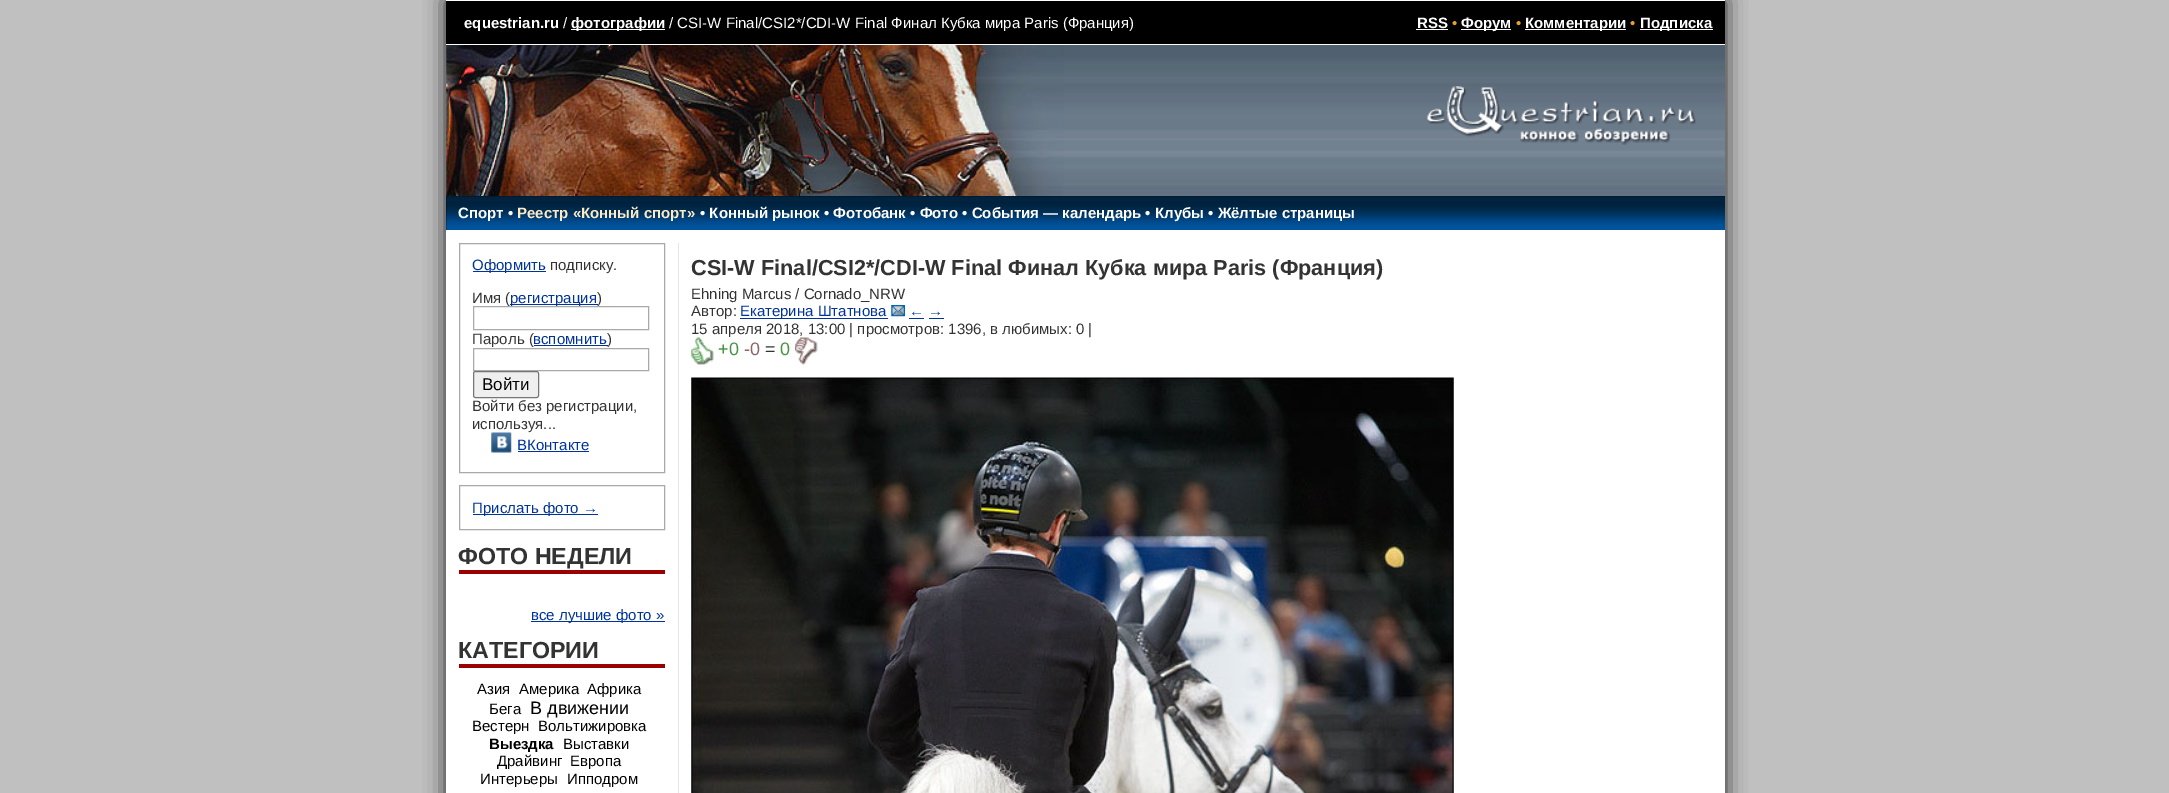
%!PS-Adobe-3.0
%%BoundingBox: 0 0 2169 793
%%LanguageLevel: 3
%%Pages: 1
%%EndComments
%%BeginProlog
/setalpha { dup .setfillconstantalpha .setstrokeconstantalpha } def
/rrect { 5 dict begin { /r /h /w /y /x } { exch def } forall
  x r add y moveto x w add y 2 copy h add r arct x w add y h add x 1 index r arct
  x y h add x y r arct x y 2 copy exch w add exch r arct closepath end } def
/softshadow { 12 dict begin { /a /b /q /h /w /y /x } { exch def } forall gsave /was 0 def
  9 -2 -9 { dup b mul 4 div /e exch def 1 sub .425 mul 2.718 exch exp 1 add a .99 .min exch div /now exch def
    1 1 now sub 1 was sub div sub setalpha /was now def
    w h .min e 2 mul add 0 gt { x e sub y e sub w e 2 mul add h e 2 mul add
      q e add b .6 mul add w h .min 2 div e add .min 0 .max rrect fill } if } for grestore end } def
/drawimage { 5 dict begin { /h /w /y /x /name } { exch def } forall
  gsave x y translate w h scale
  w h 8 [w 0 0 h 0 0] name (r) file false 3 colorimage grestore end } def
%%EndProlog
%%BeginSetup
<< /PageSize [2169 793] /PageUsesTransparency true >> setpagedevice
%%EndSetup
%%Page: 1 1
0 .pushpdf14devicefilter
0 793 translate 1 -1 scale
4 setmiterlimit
0.753 setgray
0 0 2169 793 rectfill
0.129 setgray
446 0 1279 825 0 10.5 1 softshadow
0 setgray
446 1 1279 43 rectfill
1 setgray
446 0 1279 1 rectfill
446 44 1279 1 rectfill
571 29 94 1 rectfill
1416 29 32 1 rectfill
1461 29 50 1 rectfill
1525 29 101 1 rectfill
1640 29 73 1 rectfill
(images/1.raw) 446 45 954 151 drawimage
(images/2.raw) 446 45 618 151 drawimage
(images/3.raw) 1400 45 325 151 drawimage
(images/4.raw) 1427 86 269 59 drawimage
0 setgray
446 196 1279 34 rectfill
(images/5.raw) 446 196 1279 34 drawimage
1 setgray
446 230 1279 563 rectfill
0.898 setgray
678 243 1 550 rectfill
0.663 setgray
459.5 243.5 205 229 rectstroke
0 0.2 0.6 setrgbcolor
473 271 73 1 rectfill
534 345 74 1 rectfill
0.663 setgray
473.5 348.5 175 22 rectstroke
0.937 setgray
473.5 371.5 65 26 2 rrect gsave fill grestore
0.463 setgray
stroke
0 0.2 0.6 setrgbcolor
518 451 71 1 rectfill
0.663 setgray
459.5 485.5 205 44 rectstroke
0 0.2 0.6 setrgbcolor
473 514 125 1 rectfill
0.6 0 0 setrgbcolor
459 570 206 4 rectfill
0 0.2 0.6 setrgbcolor
531 621 134 1 rectfill
0.6 0 0 setrgbcolor
459 664 206 4 rectfill
0 0.2 0.6 setrgbcolor
740 318 148 1 rectfill
(images/7.raw) 891 305 14 12 drawimage
909 318 15 1 rectfill
929 318 15 1 rectfill
(images/10.raw) 691 377 763 416 drawimage
/LiberationSans-Bold [15 0 0 -15 0 0] selectfont
1 setgray
464 28 moveto (equestrian.ru) show
/LiberationSans-Regular [15 0 0 -15 0 0] selectfont
563 28 moveto (/) show
/LiberationSans-Bold [15 0 0 -15 0 0] selectfont
571 28 moveto (фотографии) show
/LiberationSans-Regular [15 0 0 -15 0 0] selectfont
669 28 moveto (/ CSI-W Final/CSI2*/CDI-W Final Финал Кубка мира Paris \(Франция\)) show
/LiberationSans-Bold [15 0 0 -15 0 0] selectfont
1417 28 moveto (RSS) show
/LiberationSans-Regular [15 0 0 -15 0 0] selectfont
0.922 0.627 0.169 setrgbcolor
1452 28 moveto (•) show
/LiberationSans-Bold [15 0 0 -15 0 0] selectfont
1 setgray
1461 28 moveto (Форум) show
/LiberationSans-Regular [15 0 0 -15 0 0] selectfont
0.922 0.627 0.169 setrgbcolor
1516 28 moveto (•) show
/LiberationSans-Bold [15 0 0 -15 0 0] selectfont
1 setgray
1525 28 moveto (Комментарии) show
/LiberationSans-Regular [15 0 0 -15 0 0] selectfont
0.922 0.627 0.169 setrgbcolor
1630 28 moveto (•) show
/LiberationSans-Bold [15 0 0 -15 0 0] selectfont
1 setgray
1640 28 moveto (Подписка) show
458 218 moveto (Спорт •) show
0.996 0.918 0.78 setrgbcolor
517 218 moveto (Реестр «Конный спорт») show
1 setgray
700 218 moveto (• Конный рынок • Фотобанк • Фото • События — календарь • Клубы • Жёлтые страницы) show
/LiberationSans-Regular [15 0 0 -15 0 0] selectfont
0 0.2 0.6 setrgbcolor
472 270 moveto (Оформить) show
0.2 setgray
550 270 moveto (подписку.) show
472 303 moveto (Имя \() show
0 0.2 0.6 setrgbcolor
510 304 88 1 rectfill
510 303 moveto (регистрация) show
0.2 setgray
597 303 moveto (\)) show
0.663 setgray
473.5 306.5 175 23 rectstroke
0.2 setgray
472 344 moveto (Пароль \() show
0 0.2 0.6 setrgbcolor
533 344 moveto (вспомнить) show
0.2 setgray
607 344 moveto (\)) show
/LiberationSans-Regular [17 0 0 -17 0 0] selectfont
0 setgray
482 390 moveto (Войти) show
/LiberationSans-Regular [15 0 0 -15 0 0] selectfont
0.2 setgray
472 411 moveto (Войти без регистрации,) show
472 429 moveto (используя...) show
(images/6.raw) 491 432 21 21 drawimage
0 0.2 0.6 setrgbcolor
517 450 moveto (ВКонтакте) show
472 513 moveto (Прислать фото →) show
/LiberationSans-Bold [23.25 0 0 -23.25 0 0] selectfont
0.2 setgray
458 564 moveto (ФОТО НЕДЕЛИ) show
/LiberationSans-Regular [15 0 0 -15 0 0] selectfont
0 0.2 0.6 setrgbcolor
531 620 moveto (все лучшие фото ») show
/LiberationSans-Bold [23.25 0 0 -23.25 0 0] selectfont
0.2 setgray
458 658 moveto (КАТЕГОРИИ) show
/LiberationSans-Regular [15 0 0 -15 0 0] selectfont
0 setgray
477 694 moveto (Азия) show
519 694 moveto (Америка) show
587 694 moveto (Африка) show
489 714 moveto (Бега) show
/LiberationSans-Regular [18 0 0 -18 0 0] selectfont
530 714 moveto (В движении) show
/LiberationSans-Regular [15 0 0 -15 0 0] selectfont
472 731 moveto (Вестерн) show
538 731 moveto (Вольтижировка) show
/LiberationSans-Bold [15 0 0 -15 0 0] selectfont
489 749 moveto (Выездка) show
/LiberationSans-Regular [15 0 0 -15 0 0] selectfont
563 749 moveto (Выставки) show
497 766 moveto (Драйвинг) show
570 766 moveto (Европа) show
480 784 moveto (Интерьеры) show
567 784 moveto (Ипподром) show
/LiberationSans-Bold [21.7 0 0 -21.7 0 0] selectfont
0.2 setgray
691 275 moveto (CSI-W Final/CSI2*/CDI-W Final Финал Кубка мира Paris \(Франция\)) show
/LiberationSans-Regular [15 0 0 -15 0 0] selectfont
691 299 moveto (Ehning Marcus / Cornado_NRW) show
691 316 moveto (Автор:) show
0 0.2 0.6 setrgbcolor
740 316 moveto (Екатерина Штатнова) show
909 316 moveto (← →) show
0.2 setgray
691 334 moveto (15 апреля 2018, 13:00 | просмотров: 1396, в любимых: 0 |) show
(images/8.raw) 691 337 23 28 drawimage
/LiberationSans-Regular [18 0 0 -18 0 0] selectfont
0.278 0.584 0.267 setrgbcolor
718 355 moveto (+0) show
0.541 0.404 0.404 setrgbcolor
744 355 moveto (-0) show
0.2 setgray
765 355 moveto (=) show
0.278 0.584 0.267 setrgbcolor
780 355 moveto (0) show
(images/9.raw) 795 337 23 28 drawimage
.poppdf14devicefilter showpage
%%EOF
